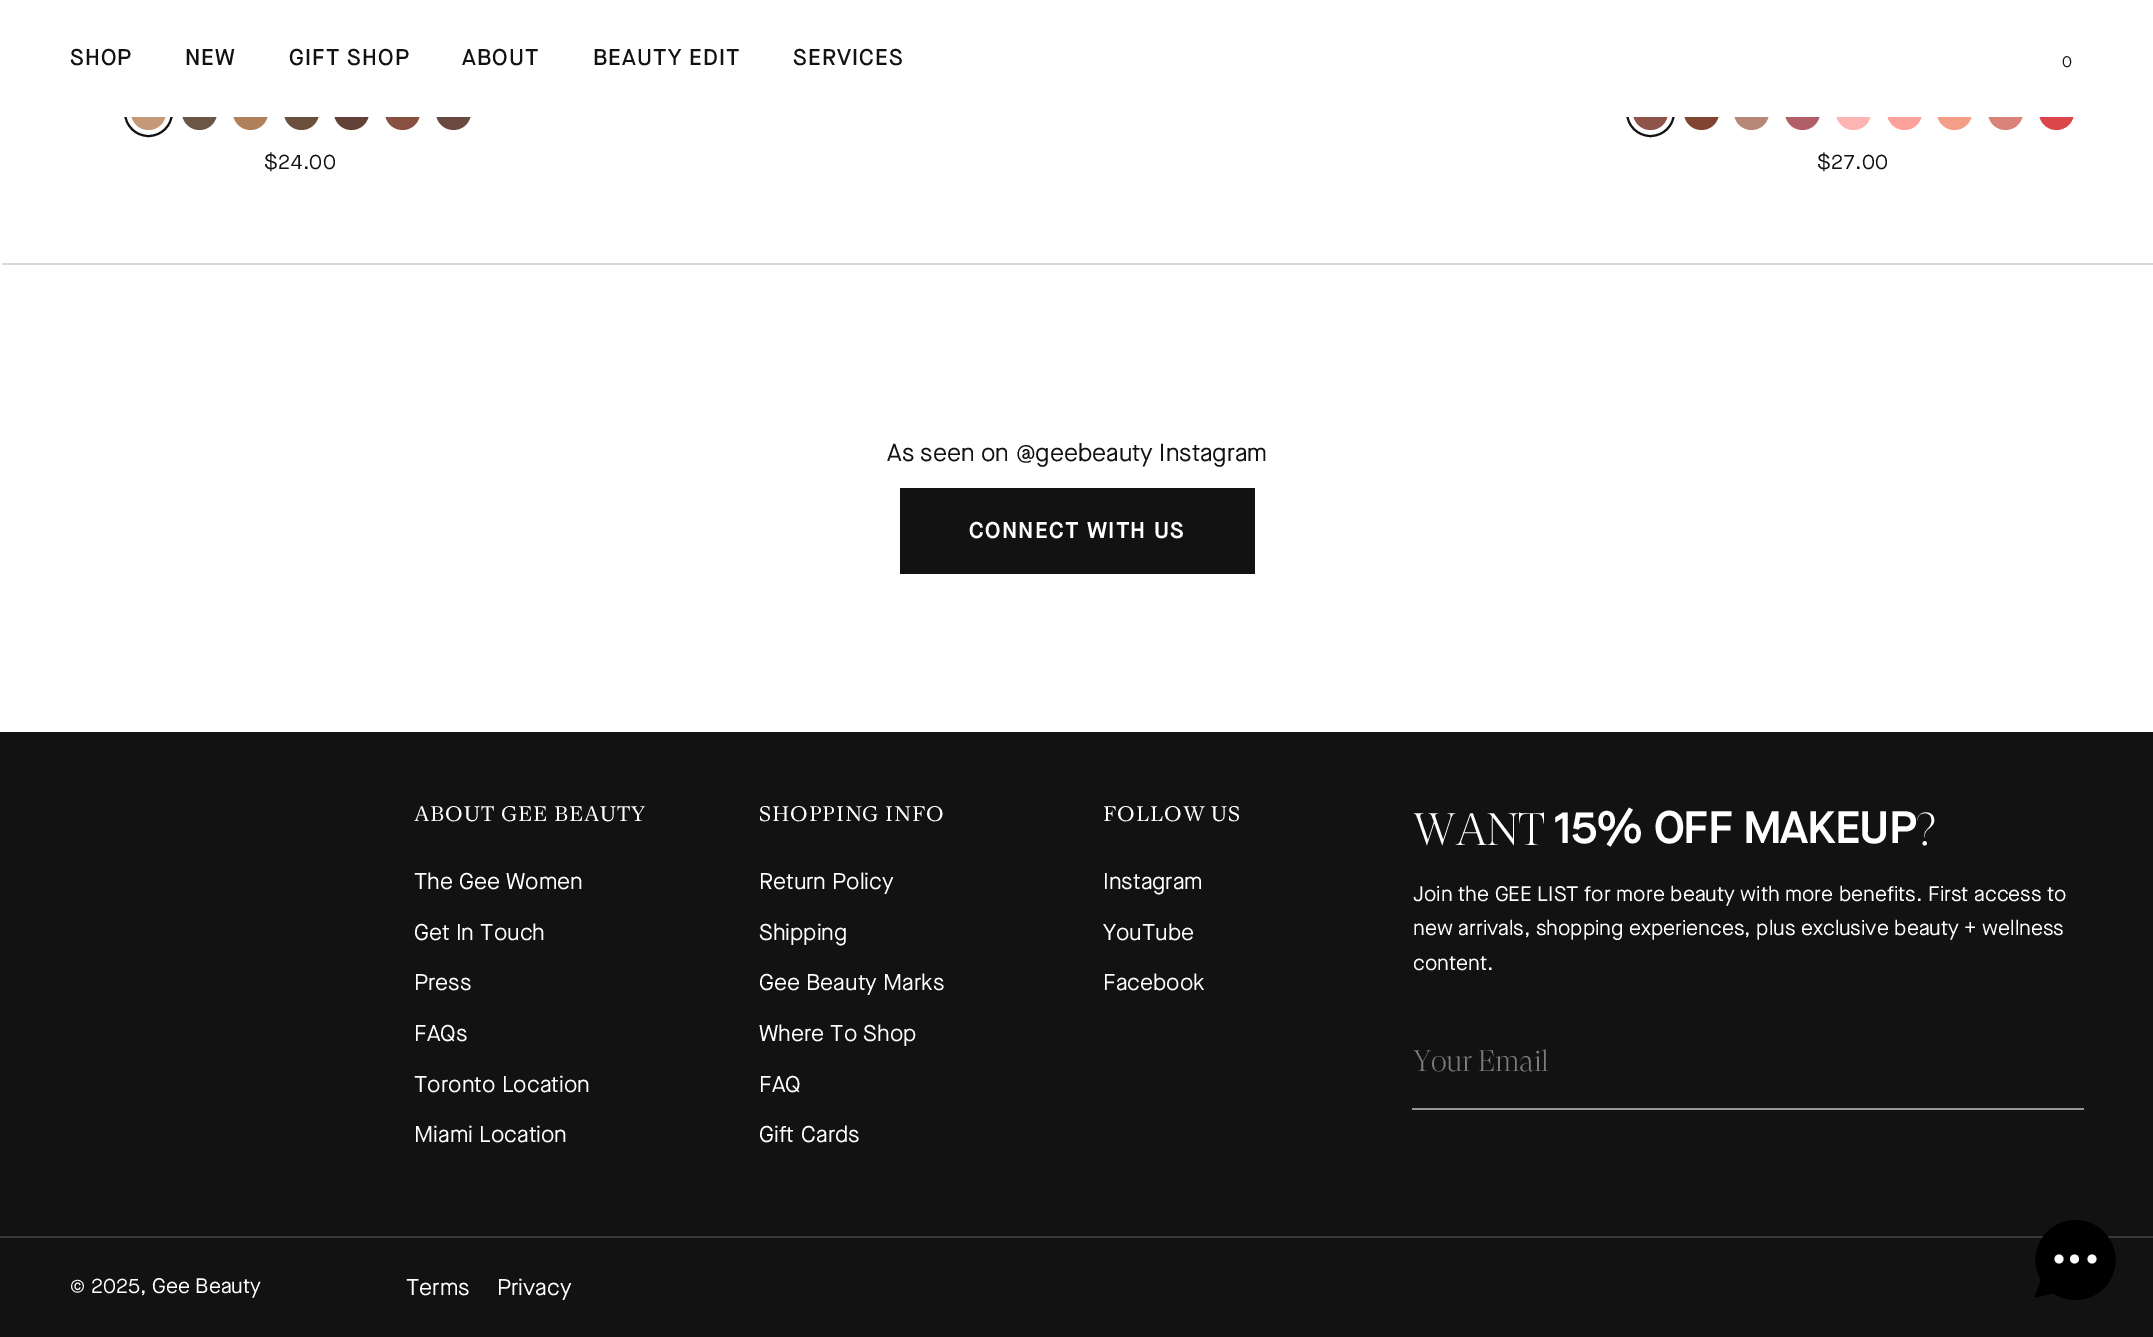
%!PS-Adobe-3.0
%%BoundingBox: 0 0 2153 1337
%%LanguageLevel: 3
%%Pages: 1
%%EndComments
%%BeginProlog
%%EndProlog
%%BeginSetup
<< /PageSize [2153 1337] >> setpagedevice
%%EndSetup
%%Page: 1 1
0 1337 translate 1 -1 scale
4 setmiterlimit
1 setgray
0 0 2153 1337 rectfill
0.071 setgray
2 setlinewidth
newpath 148.5 112.5 23.5 0 360 arc closepath stroke
0.769 0.6 0.475 setrgbcolor
newpath 148.5 112.5 17.5 0 360 arc closepath fill
0.427 0.333 0.263 setrgbcolor
newpath 199.5 112.5 17.5 0 360 arc closepath fill
0.69 0.502 0.353 setrgbcolor
newpath 250.5 112.5 17.5 0 360 arc closepath fill
0.416 0.31 0.235 setrgbcolor
newpath 301.5 112.5 17.5 0 360 arc closepath fill
0.384 0.259 0.22 setrgbcolor
newpath 351.5 112.5 17.5 0 360 arc closepath fill
0.533 0.314 0.251 setrgbcolor
newpath 402.5 112.5 17.5 0 360 arc closepath fill
0.416 0.29 0.251 setrgbcolor
newpath 453.5 112.5 17.5 0 360 arc closepath fill
0.071 setgray
newpath 1650.5 112.5 23.5 0 360 arc closepath stroke
0.557 0.329 0.29 setrgbcolor
newpath 1650.5 112.5 17.5 0 360 arc closepath fill
0.498 0.271 0.196 setrgbcolor
newpath 1701.5 112.5 17.5 0 360 arc closepath fill
0.718 0.533 0.471 setrgbcolor
newpath 1751.5 112.5 17.5 0 360 arc closepath fill
0.69 0.373 0.408 setrgbcolor
newpath 1802.5 112.5 17.5 0 360 arc closepath fill
0.992 0.71 0.706 setrgbcolor
newpath 1853.5 112.5 17.5 0 360 arc closepath fill
1 0.631 0.608 setrgbcolor
newpath 1904.5 112.5 17.5 0 360 arc closepath fill
0.961 0.62 0.529 setrgbcolor
newpath 1954.5 112.5 17.5 0 360 arc closepath fill
0.855 0.514 0.478 setrgbcolor
newpath 2005.5 112.5 17.5 0 360 arc closepath fill
0.855 0.275 0.286 setrgbcolor
newpath 2056.5 112.5 17.5 0 360 arc closepath fill
1 setgray
124 88 1950 29 rectfill
0.847 setgray
2 263 2151 2 rectfill
0.071 setgray
900 488 355 86 rectfill
0 732 2153 504 rectfill
0.592 setgray
1412 1108 672 2 rectfill
0.071 setgray
0 1238 2153 99 rectfill
0.22 setgray
0 1236 2153 2 rectfill
0 setgray
newpath 2075.5 1260 40 0 360 arc closepath fill
newpath 2065.5 1291 moveto 2047.5 1263 lineto 2034.5 1297.5 lineto closepath eofill
1 setgray
newpath 2059 1259 4.5 0 360 arc closepath fill
newpath 2074.5 1259 4.5 0 360 arc closepath fill
newpath 2092 1259 4.5 0 360 arc closepath fill
/MaisonNeue-Medium [22.75 0 0 -22.75 0 0] selectfont
0.071 setgray
70 65 moveto 1.1 0 (SHOP) ashow
185 65 moveto 1.1 0 (NEW) ashow
289 65 moveto 1.1 0 (GIFT SHOP) ashow
462 65 moveto 1.1 0 (ABOUT) ashow
593 65 moveto 1.1 0 (BEAUTY EDIT) ashow
793 65 moveto 1.1 0 (SERVICES) ashow
/MaisonNeue-Regular [16 0 0 -16 0 0] selectfont
2062 67 moveto (0) show
/MaisonNeue-Regular [21 0 0 -21 0 0] selectfont
264 169 moveto 0.5 0 ($24.00) ashow
1817 169 moveto 0.5 0 ($27.00) ashow
/MaisonNeue-Regular [24.5 0 0 -24.5 0 0] selectfont
887 461 moveto (As seen on @geebeauty Instagram) show
/MaisonNeue-SemiBold [22.75 0 0 -22.75 0 0] selectfont
1 setgray
969 538 moveto 1.25 0 (CONNECT WITH US) ashow
/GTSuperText-Regular [21 0 0 -21 0 0] selectfont
414 821 moveto 0.9 0 (ABOUT GEE BEAUTY) ashow
/MaisonNeue-Regular [22.75 0 0 -22.75 0 0] selectfont
414 889 moveto (The Gee Women) show
414 940 moveto (Get In Touch) show
414 990 moveto (Press) show
414 1041 moveto (FAQs) show
414 1092 moveto (Toronto Location) show
414 1142 moveto (Miami Location) show
/GTSuperText-Regular [21 0 0 -21 0 0] selectfont
759 821 moveto 0.9 0 (SHOPPING INFO) ashow
/MaisonNeue-Regular [22.75 0 0 -22.75 0 0] selectfont
759 889 moveto (Return Policy) show
759 940 moveto (Shipping) show
759 990 moveto (Gee Beauty Marks) show
759 1041 moveto (Where To Shop) show
759 1092 moveto (FAQ) show
759 1142 moveto 1 0 32 (Gift Cards) widthshow
/GTSuperText-Regular [21 0 0 -21 0 0] selectfont
1103 821 moveto 0.9 0 (FOLLOW US) ashow
/MaisonNeue-Regular [22.75 0 0 -22.75 0 0] selectfont
1103 889 moveto (Instagram) show
1103 940 moveto (YouTube) show
1103 990 moveto (Facebook) show
/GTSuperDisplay-Light [45.5 0 0 -45.5 0 0] selectfont
1413 845 moveto -1 0 (WANT) ashow
/MaisonNeue-SemiBold [45.5 0 0 -45.5 0 0] selectfont
1554 843 moveto -1 0 (15% OFF MAKEUP) ashow
/GTSuperDisplay-Light [45.5 0 0 -45.5 0 0] selectfont
1916 845 moveto -1 0 (?) ashow
/MaisonNeue-Regular [21 0 0 -21 0 0] selectfont
1413 901 moveto (Join the GEE LIST for more beauty with more benefits. First access to) show
1413 935 moveto (new arrivals, shopping experiences, plus exclusive beauty + wellness) show
1413 970 moveto (content.) show
/GTSuperDisplay-Light [29.75 0 0 -29.75 0 0] selectfont
0.49 setgray
1413 1071 moveto -0.5 0 (Your Email) ashow
/MaisonNeue-Regular [21 0 0 -21 0 0] selectfont
1 setgray
70 1293 moveto (© 2025, Gee Beauty) show
/MaisonNeue-Regular [22.75 0 0 -22.75 0 0] selectfont
406 1295 moveto (Terms) show
497 1295 moveto (Privacy) show
showpage
%%EOF
